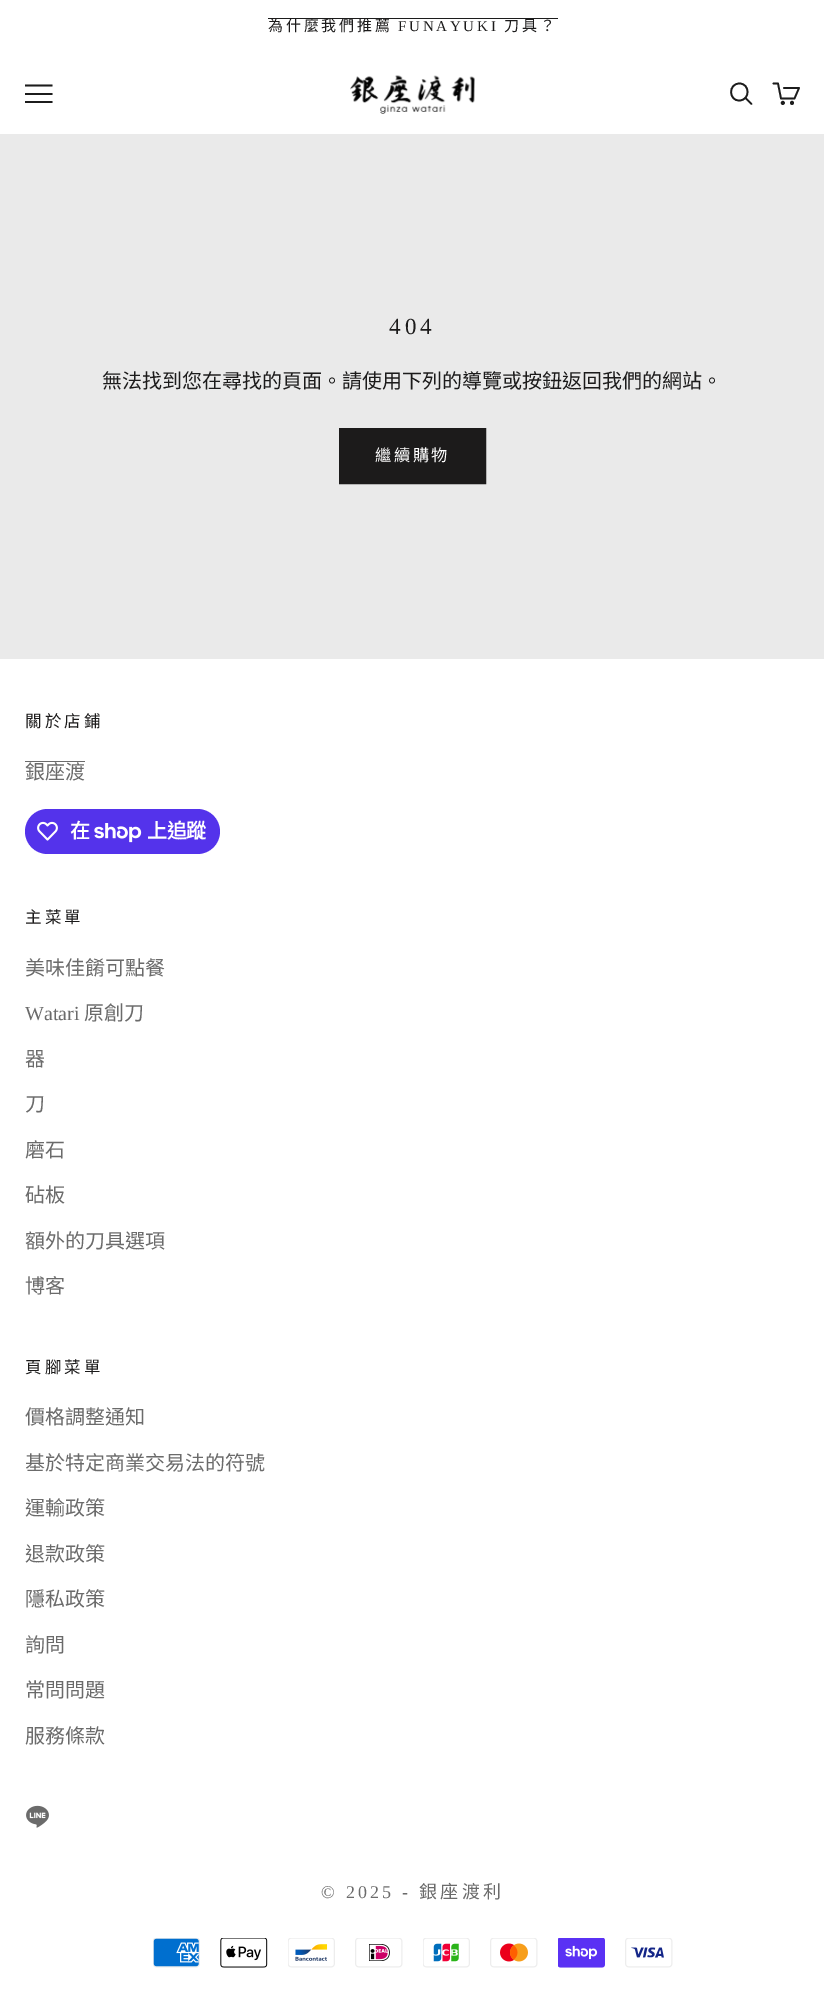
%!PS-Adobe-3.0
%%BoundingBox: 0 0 824 1997
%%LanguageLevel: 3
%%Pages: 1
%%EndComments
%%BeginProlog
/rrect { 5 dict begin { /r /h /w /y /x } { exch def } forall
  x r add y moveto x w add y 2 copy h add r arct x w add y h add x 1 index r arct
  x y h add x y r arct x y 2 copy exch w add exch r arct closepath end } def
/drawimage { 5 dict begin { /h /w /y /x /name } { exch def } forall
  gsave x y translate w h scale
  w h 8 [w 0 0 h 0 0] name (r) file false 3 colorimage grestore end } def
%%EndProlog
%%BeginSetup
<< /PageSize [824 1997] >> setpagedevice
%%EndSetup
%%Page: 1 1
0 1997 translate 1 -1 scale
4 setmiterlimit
0.918 setgray
0 0 824 1997 rectfill
1 setgray
0 0 824 134 rectfill
0.11 setgray
268 18 290 1 rectfill
1.7 setlinewidth
2 setlinecap
newpath 26 102 moveto 51.5 102 lineto 26 94 moveto 51.5 94 lineto 26 85.5 moveto 51.5 85.5 lineto stroke
(images/1.raw) 350 75 125 39 drawimage
0 setlinecap
newpath 739.5 83.5 moveto 728 83.5 728.5 101 739.5 100.5 curveto 750.5 100 750 83.5 739.5 83.5 curveto closepath stroke
1 setlinecap
newpath 745.5 98 moveto 751.5 104 lineto stroke
1 setlinejoin
newpath 784 88 moveto 799 88 lineto 794.5 98.5 lineto 781 98.5 lineto 778 83.5 lineto 773.5 83.5 lineto stroke
0 setlinecap
0 setlinejoin
newpath 782.8 102.9 1.1 0 360 arc closepath stroke
newpath 792 102.9 1.1 0 360 arc closepath stroke
0.11 0.106 0.106 setrgbcolor
newpath 339.5 428.5 moveto 485.5 428.5 lineto 485.5 483.5 lineto 339.5 483.5 lineto closepath gsave fill grestore
1 setlinewidth
stroke
1 setgray
0 659 824 1338 rectfill
0.42 setgray
25 761 60 1 rectfill
0.329 0.2 0.922 setrgbcolor
25 809 195 45 22.5 rrect fill
(images/2.raw) 37 821 21 20 drawimage
(images/3.raw) 94 823 48 20 drawimage
(images/4.raw) 26 1805 23 23 drawimage
(images/5.raw) 153 1938 47 30 drawimage
(images/6.raw) 220 1938 48 30 drawimage
(images/7.raw) 288 1938 47 30 drawimage
(images/8.raw) 355 1938 48 30 drawimage
(images/9.raw) 423 1938 47 30 drawimage
(images/10.raw) 490 1938 48 30 drawimage
(images/11.raw) 558 1938 47 30 drawimage
(images/12.raw) 625 1938 48 30 drawimage
/NotoSansCJKTC-Regular [15 0 0 -15 0 0] selectfont
0.11 0.106 0.106 setrgbcolor
268 31 moveto 2.75 0 (為什麼我們推薦) ashow
/LiberationSerif-Regular [15 0 0 -15 0 0] selectfont
398 31 moveto 2.75 0 (FUNAYUKI) ashow
/NotoSansCJKTC-Regular [15 0 0 -15 0 0] selectfont
504 31 moveto 2.75 0 (刀具？) ashow
/LiberationSerif-Regular [23 0 0 -23 0 0] selectfont
389 334 moveto 4 0 (404) ashow
/NotoSansCJKTC-Regular [20 0 0 -20 0 0] selectfont
102 388 moveto (無法找到您在尋找的頁面。請使用下列的導覽或按鈕返回我們的網站。) show
/NotoSansCJKTC-Regular [16.25 0 0 -16.25 0 0] selectfont
1 setgray
375 461 moveto 2.5 0 (繼續購物) ashow
/NotoSansCJKTC-Regular [16.5 0 0 -16.5 0 0] selectfont
0.11 0.106 0.106 setrgbcolor
25 727 moveto 3 0 (關於店鋪) ashow
/NotoSansCJKTC-Regular [20 0 0 -20 0 0] selectfont
0.42 setgray
25 779 moveto (銀座渡) show
/NotoSansCJKTC-Bold [20 0 0 -20 0 0] selectfont
1 setgray
70 838 moveto -0.5 0 (在) ashow
147 838 moveto -0.5 0 (上追蹤) ashow
/NotoSansCJKTC-Regular [16.5 0 0 -16.5 0 0] selectfont
0.11 0.106 0.106 setrgbcolor
25 923 moveto 3 0 (主菜單) ashow
/NotoSansCJKTC-Regular [20 0 0 -20 0 0] selectfont
0.42 setgray
25 975 moveto (美味佳餚可點餐) show
/LiberationSerif-Regular [20 0 0 -20 0 0] selectfont
25 1020 moveto (Watari) show
/NotoSansCJKTC-Regular [20 0 0 -20 0 0] selectfont
84 1020 moveto (原創刀) show
25 1066 moveto (器) show
25 1111 moveto (刀) show
25 1157 moveto (磨石) show
25 1202 moveto (砧板) show
25 1248 moveto (額外的刀具選項) show
25 1293 moveto (博客) show
/NotoSansCJKTC-Regular [16.5 0 0 -16.5 0 0] selectfont
0.11 0.106 0.106 setrgbcolor
25 1373 moveto 3 0 (頁腳菜單) ashow
/NotoSansCJKTC-Regular [20 0 0 -20 0 0] selectfont
0.42 setgray
25 1424 moveto (價格調整通知) show
25 1470 moveto (基於特定商業交易法的符號) show
25 1515 moveto (運輸政策) show
25 1561 moveto (退款政策) show
25 1606 moveto (隱私政策) show
25 1652 moveto (詢問) show
25 1697 moveto (常問問題) show
25 1743 moveto (服務條款) show
/LiberationSerif-Regular [18 0 0 -18 0 0] selectfont
321 1898 moveto 3.25 0 (© 2025 -) ashow
/NotoSansCJKTC-Regular [18 0 0 -18 0 0] selectfont
419 1898 moveto 3.25 0 (銀座渡利) ashow
showpage
%%EOF
